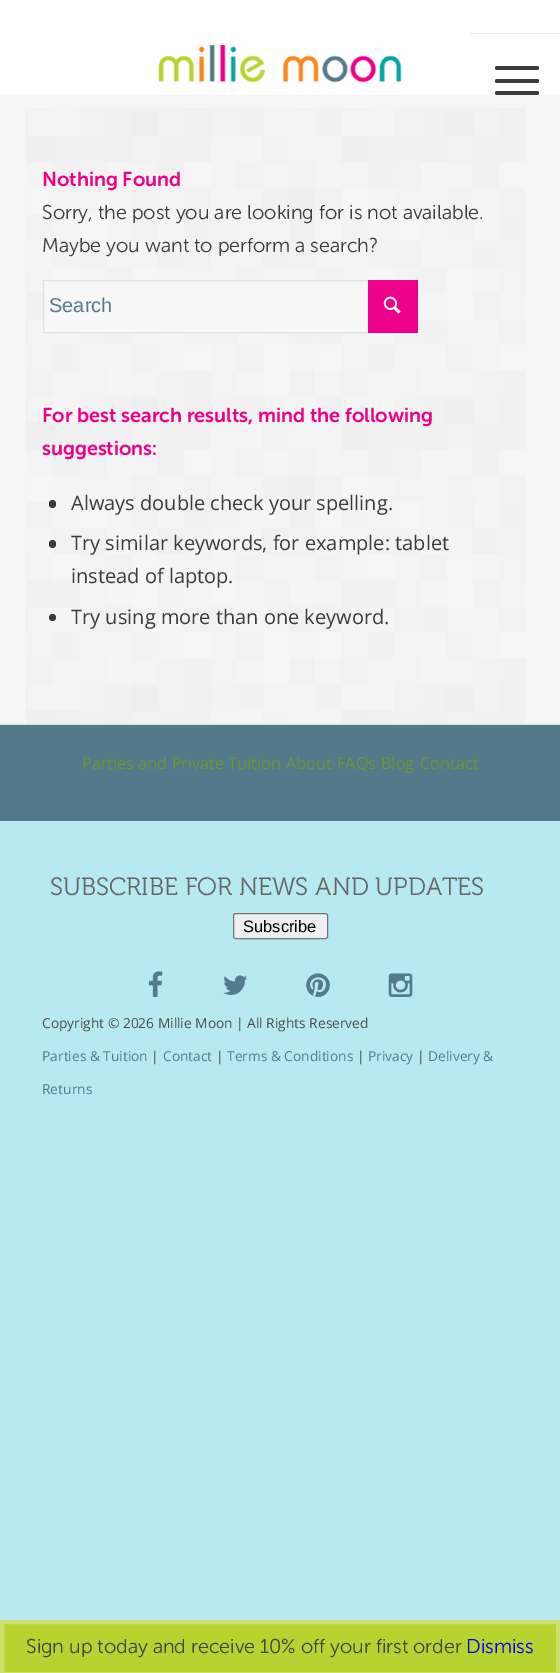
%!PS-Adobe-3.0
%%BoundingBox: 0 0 560 1673
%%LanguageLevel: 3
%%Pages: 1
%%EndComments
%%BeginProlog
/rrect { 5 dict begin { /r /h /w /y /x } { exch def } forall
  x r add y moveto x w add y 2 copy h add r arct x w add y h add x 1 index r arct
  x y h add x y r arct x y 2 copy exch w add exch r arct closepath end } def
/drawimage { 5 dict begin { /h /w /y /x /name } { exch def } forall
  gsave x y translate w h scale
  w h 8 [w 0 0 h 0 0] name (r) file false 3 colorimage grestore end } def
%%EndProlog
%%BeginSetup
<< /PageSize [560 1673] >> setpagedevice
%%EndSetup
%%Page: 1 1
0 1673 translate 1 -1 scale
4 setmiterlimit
0.718 0.914 0.945 setrgbcolor
0 0 560 1673 rectfill
1 setgray
0 0 560 95 rectfill
(images/1.raw) 158 45 244 38 drawimage
0.918 setgray
470 33 90 1 rectfill
0.231 setgray
495 79 44 4 2 rrect fill
495 66 44 4 2 rrect fill
495 91 44 4 2 rrect fill
0.965 setgray
0 95 560 629 rectfill
(images/2.raw) 26 108 500 616 drawimage
0.973 setgray
44 281 324 51 rectfill
0.882 setgray
43.5 280.5 374 52 rectstroke
0.929 0 0.541 setrgbcolor
368 280 50 53 rectfill
(images/3.raw) 383 296 18 18 drawimage
0.231 setgray
49 500 7 8 3.5 rrect fill
49 540 7 8 3.5 rrect fill
newpath 52.5 617.5 3.5 0 360 arc closepath fill
0.325 0.478 0.545 setrgbcolor
0 725 560 96 rectfill
0.882 setgray
0 724 560 1 rectfill
0.937 setgray
233.5 913.5 94 25 2 rrect gsave fill grestore
0.463 setgray
stroke
(images/4.raw) 148 971 15 26 drawimage
(images/5.raw) 223 975 25 20 drawimage
(images/6.raw) 306 973 24 24 drawimage
(images/7.raw) 388 973 25 24 drawimage
0.714 0.827 0.188 setrgbcolor
newpath 2 1622 moveto 558 1622 lineto 558 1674 lineto 2 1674 lineto closepath gsave fill grestore
0.8 0.878 0.431 setrgbcolor
4 setlinewidth
stroke
/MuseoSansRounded-SemiBold [20 0 0 -20 0 0] selectfont
0.929 0 0.541 setrgbcolor
42 186 moveto (Nothing Found) show
/MuseoSansRounded-Light [20 0 0 -20 0 0] selectfont
0.231 setgray
42 219 moveto (Sorry, the post you are looking for is not available.) show
42 252 moveto (Maybe you want to perform a search?) show
/LiberationSans-Regular [20 0 0 -20 0 0] selectfont
0.329 0.482 0.549 setrgbcolor
49 312 moveto (Search) show
/MuseoSansRounded-SemiBold [20 0 0 -20 0 0] selectfont
0.929 0 0.541 setrgbcolor
42 422 moveto (For best search results, mind the following) show
42 455 moveto (suggestions:) show
/OpenSans-Regular [20 0 0 -20 0 0] selectfont
0.231 setgray
71 510 moveto (Always double check your spelling.) show
71 550 moveto (Try similar keywords, for example: tablet) show
71 583 moveto (instead of laptop.) show
71 624 moveto (Try using more than one keyword.) show
/OpenSans-Regular [16.25 0 0 -16.25 0 0] selectfont
0.443 0.58 0.188 setrgbcolor
82 769 moveto (Parties and Private Tuition) show
286 769 moveto (About) show
337 769 moveto (FAQs) show
381 769 moveto (Blog) show
420 769 moveto (Contact) show
/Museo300-Light [25 0 0 -25 0 0] selectfont
0.4 setgray
50 895 moveto (SUBSCRIBE FOR NEWS AND UPDATES) show
/LiberationSans-Regular [16.5 0 0 -16.5 0 0] selectfont
0 setgray
243 932 moveto (Subscribe) show
/OpenSans-Regular [13.75 0 0 -13.75 0 0] selectfont
0.298 0.31 0.271 setrgbcolor
42 1028 moveto (Copyright © 2026 Millie Moon | All Rights Reserved) show
0.329 0.482 0.549 setrgbcolor
42 1061 moveto (Parties & Tuition) show
0.298 0.31 0.271 setrgbcolor
151 1061 moveto (|) show
0.329 0.482 0.549 setrgbcolor
163 1061 moveto (Contact) show
0.298 0.31 0.271 setrgbcolor
216 1061 moveto (|) show
0.329 0.482 0.549 setrgbcolor
227 1061 moveto (Terms & Conditions) show
0.298 0.31 0.271 setrgbcolor
357 1061 moveto (|) show
0.329 0.482 0.549 setrgbcolor
368 1061 moveto (Privacy) show
0.298 0.31 0.271 setrgbcolor
417 1061 moveto (|) show
0.329 0.482 0.549 setrgbcolor
428 1061 moveto (Delivery &) show
42 1094 moveto (Returns) show
/MuseoSansRounded-Light [20 0 0 -20 0 0] selectfont
0.267 setgray
26 1653 moveto (Sign up today and receive 10% off your first order) show
0 0 0.933 setrgbcolor
466 1653 moveto (Dismiss) show
showpage
%%EOF
